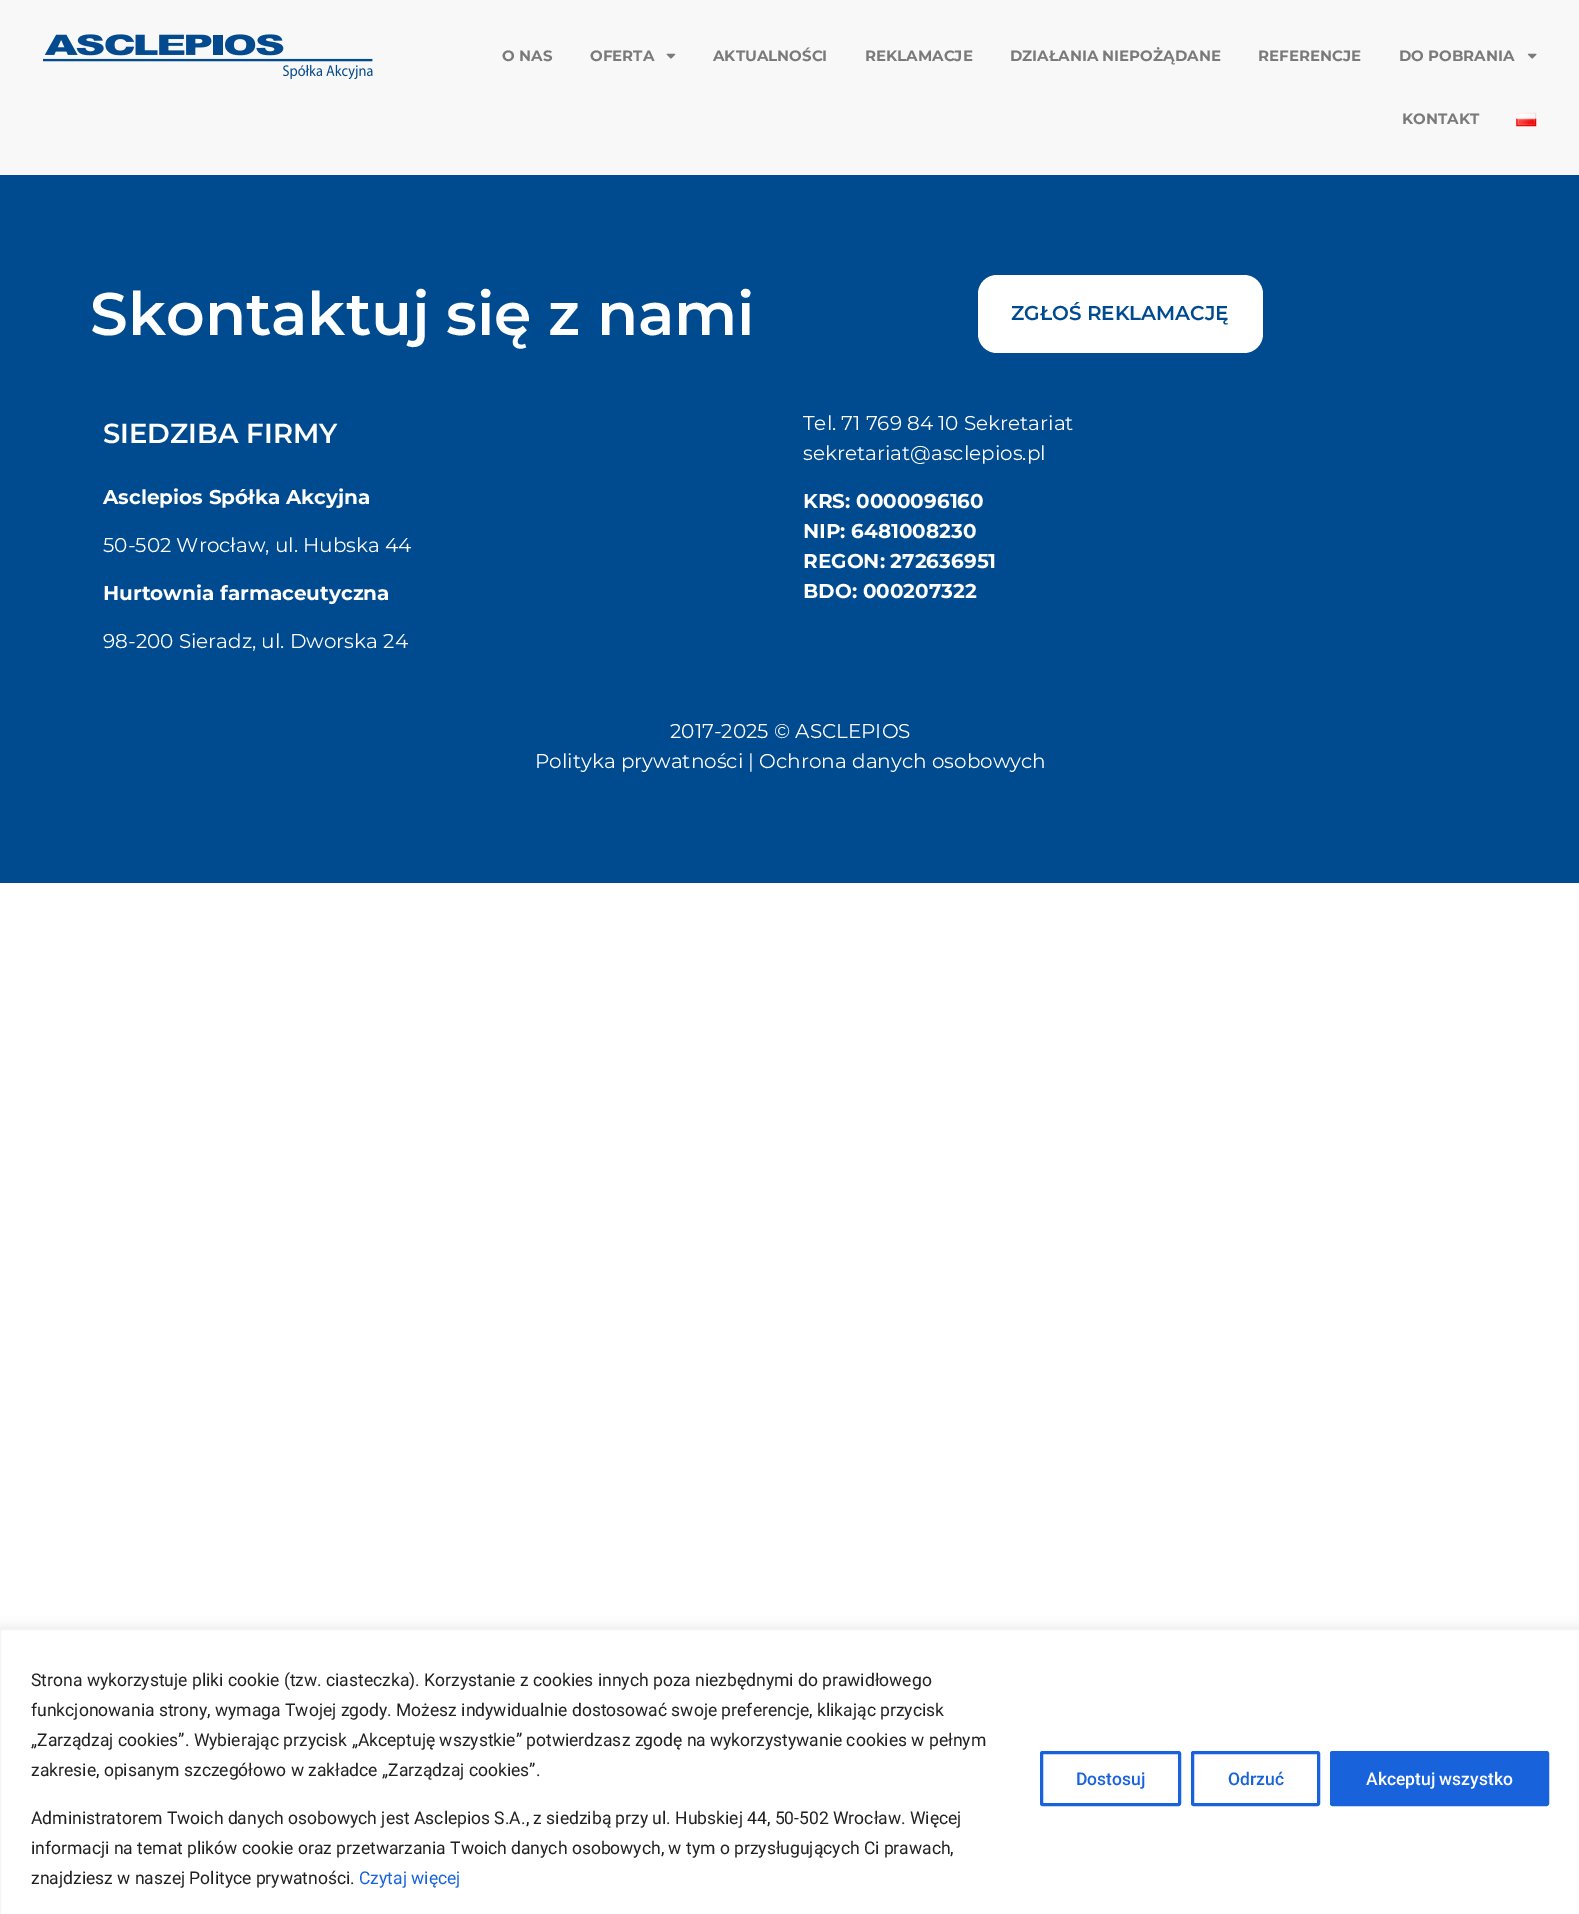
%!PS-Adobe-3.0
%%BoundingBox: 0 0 1579 1914
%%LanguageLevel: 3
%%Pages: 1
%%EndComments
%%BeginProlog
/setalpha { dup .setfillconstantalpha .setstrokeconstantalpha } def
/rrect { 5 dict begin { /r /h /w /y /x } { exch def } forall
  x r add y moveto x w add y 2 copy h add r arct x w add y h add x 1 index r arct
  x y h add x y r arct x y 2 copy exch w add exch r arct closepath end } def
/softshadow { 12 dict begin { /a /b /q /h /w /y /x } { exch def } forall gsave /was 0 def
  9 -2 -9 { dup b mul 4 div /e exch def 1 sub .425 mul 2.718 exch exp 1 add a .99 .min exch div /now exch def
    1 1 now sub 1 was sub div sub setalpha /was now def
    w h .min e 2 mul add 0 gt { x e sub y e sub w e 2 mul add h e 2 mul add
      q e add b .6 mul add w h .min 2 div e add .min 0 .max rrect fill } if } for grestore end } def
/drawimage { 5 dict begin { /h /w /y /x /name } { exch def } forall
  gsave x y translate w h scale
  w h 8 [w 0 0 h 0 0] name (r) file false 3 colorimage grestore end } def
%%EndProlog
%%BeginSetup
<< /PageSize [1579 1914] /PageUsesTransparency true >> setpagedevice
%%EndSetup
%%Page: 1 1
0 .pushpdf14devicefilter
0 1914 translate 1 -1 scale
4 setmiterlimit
1 setgray
0 0 1579 1914 rectfill
0.976 0.973 0.973 setrgbcolor
0 0 1579 175 rectfill
(images/1.raw) 43 34 330 45 drawimage
(images/2.raw) 666 53 10 6 drawimage
(images/3.raw) 1527 53 10 6 drawimage
(images/4.raw) 1516 112 21 15 drawimage
0 0.294 0.561 setrgbcolor
0 175 1579 708 rectfill
1 setgray
978 275 285 78 19 rrect fill
0.675 0.671 0.671 setrgbcolor
0 1628 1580 286 0 6 0.3 softshadow
1 setgray
newpath 0.5 1629.5 moveto 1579.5 1629.5 lineto 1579.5 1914.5 lineto 0.5 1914.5 lineto closepath gsave fill grestore
0.957 setgray
stroke
0.094 0.388 0.863 setrgbcolor
3 setlinewidth
1041.5 1752.5 138 52 1 rrect stroke
1192.5 1752.5 126 52 1 rrect stroke
1331.5 1752.5 216 52 1 rrect gsave fill grestore
stroke
/Montserrat-Bold [15 0 0 -15 0 0] selectfont
0.478 setgray
502 61 moveto (O NAS) show
590 61 moveto (OFERTA) show
713 61 moveto (AKTUALNOŚCI) show
865 61 moveto (REKLAMACJE) show
1010 61 moveto (DZIAŁANIA NIEPOŻĄDANE) show
1258 61 moveto (REFERENCJE) show
1399 61 moveto (DO POBRANIA) show
1402 124 moveto (KONTAKT) show
/Montserrat-SemiBold [60 0 0 -60 0 0] selectfont
1 setgray
90 335 moveto (Skontaktuj się z nami) show
/Montserrat-SemiBold [20 0 0 -20 0 0] selectfont
0 0.294 0.561 setrgbcolor
1011 320 moveto (ZGŁOŚ REKLAMACJĘ) show
/Montserrat-SemiBold [27.5 0 0 -27.5 0 0] selectfont
1 setgray
103 443 moveto (SIEDZIBA FIRMY) show
/Montserrat-Bold [20 0 0 -20 0 0] selectfont
103 504 moveto (Asclepios Spółka Akcyjna) show
/Montserrat-Regular [20 0 0 -20 0 0] selectfont
103 552 moveto (50-502 Wrocław, ul. Hubska 44) show
/Montserrat-Bold [20 0 0 -20 0 0] selectfont
103 600 moveto (Hurtownia farmaceutyczna) show
/Montserrat-Regular [20 0 0 -20 0 0] selectfont
103 648 moveto (98-200 Sieradz, ul. Dworska 24) show
803 430 moveto (Tel. 71 769 84 10 Sekretariat) show
803 460 moveto (sekretariat@asclepios.pl) show
/Montserrat-Bold [20 0 0 -20 0 0] selectfont
803 508 moveto (KRS: 0000096160) show
803 538 moveto (NIP: 6481008230) show
803 568 moveto (REGON: 272636951) show
803 598 moveto (BDO: 000207322) show
/Montserrat-Regular [20 0 0 -20 0 0] selectfont
670 738 moveto (2017-2025 © ASCLEPIOS) show
535 768 moveto (Polityka prywatności | Ochrona danych osobowych) show
/Roboto-Regular [17.5 0 0 -17.5 0 0] selectfont
0.129 setgray
31 1686 moveto (Strona wykorzystuje pliki cookie \(tzw. ciasteczka\). Korzystanie z cookies innych poza niezbędnymi do prawidłowego) show
31 1716 moveto (funkcjonowania strony, wymaga Twojej zgody. Możesz indywidualnie dostosować swoje preferencje, klikając przycisk) show
31 1746 moveto („Zarządzaj cookies”. Wybierając przycisk „Akceptuję wszystkie” potwierdzasz zgodę na wykorzystywanie cookies w pełnym) show
31 1776 moveto (zakresie, opisanym szczegółowo w zakładce „Zarządzaj cookies”.) show
31 1824 moveto (Administratorem Twoich danych osobowych jest Asclepios S.A., z siedzibą przy ul. Hubskiej 44, 50-502 Wrocław. Więcej) show
31 1854 moveto (informacji na temat plików cookie oraz przetwarzania Twoich danych osobowych, w tym o przysługujących Ci prawach,) show
31 1884 moveto (znajdziesz w naszej Polityce prywatności.) show
0.094 0.388 0.863 setrgbcolor
359 1884 moveto (Czytaj więcej) show
/Roboto-Medium [17.5 0 0 -17.5 0 0] selectfont
1076 1785 moveto (Dostosuj) show
1228 1785 moveto (Odrzuć) show
1 setgray
1366 1785 moveto (Akceptuj wszystko) show
.poppdf14devicefilter showpage
%%EOF
